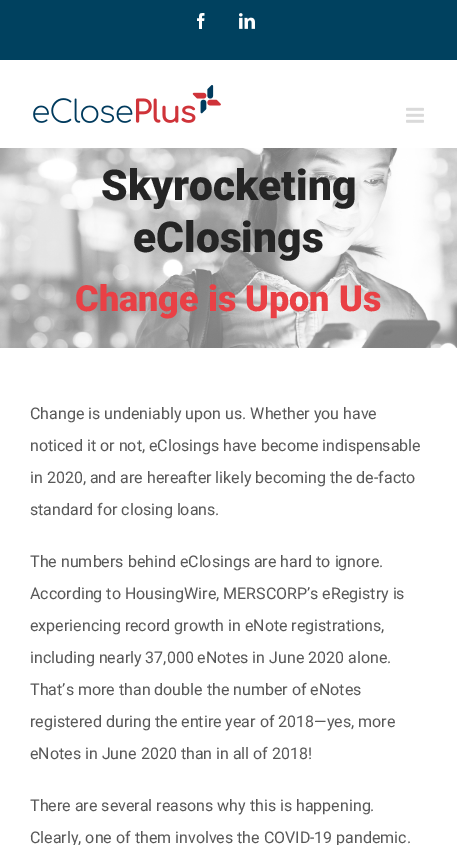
%!PS-Adobe-3.0
%%BoundingBox: 0 0 457 845
%%LanguageLevel: 3
%%Pages: 1
%%EndComments
%%BeginProlog
/drawimage { 5 dict begin { /h /w /y /x /name } { exch def } forall
  gsave x y translate w h scale
  w h 8 [w 0 0 h 0 0] name (r) file false 3 colorimage grestore end } def
%%EndProlog
%%BeginSetup
<< /PageSize [457 845] >> setpagedevice
%%EndSetup
%%Page: 1 1
0 845 translate 1 -1 scale
4 setmiterlimit
1 setgray
0 0 457 845 rectfill
0 0.255 0.373 setrgbcolor
0 0 457 60 rectfill
(images/1.raw) 197 13 8 16 drawimage
(images/2.raw) 239 13 16 16 drawimage
(images/3.raw) 33 85 188 38 drawimage
(images/4.raw) 406 107 18 16 drawimage
(images/5.raw) 0 148 457 200 drawimage
/Roboto-Black [42.5 0 0 -42.5 0 0] selectfont
0.145 setgray
101 200 moveto (Skyrocketing) show
133 252 moveto (eClosings) show
/Roboto-Black [36 0 0 -36 0 0] selectfont
0.914 0.251 0.271 setrgbcolor
75 311 moveto (Change is Upon Us) show
/Roboto-Regular [16 0 0 -16 0 0] selectfont
0.345 setgray
30 419 moveto (Change is undeniably upon us. Whether you have) show
30 451 moveto (noticed it or not, eClosings have become indispensable) show
30 483 moveto (in 2020, and are hereafter likely becoming the de-facto) show
30 515 moveto (standard for closing loans.) show
30 567 moveto (The numbers behind eClosings are hard to ignore.) show
30 599 moveto (According to HousingWire, MERSCORP’s eRegistry is) show
30 631 moveto (experiencing record growth in eNote registrations,) show
30 663 moveto (including nearly 37,000 eNotes in June 2020 alone.) show
30 695 moveto (That’s more than double the number of eNotes) show
30 727 moveto (registered during the entire year of 2018—yes, more) show
30 759 moveto (eNotes in June 2020 than in all of 2018!) show
30 811 moveto (There are several reasons why this is happening.) show
30 843 moveto (Clearly, one of them involves the COVID-19 pandemic.) show
showpage
%%EOF
